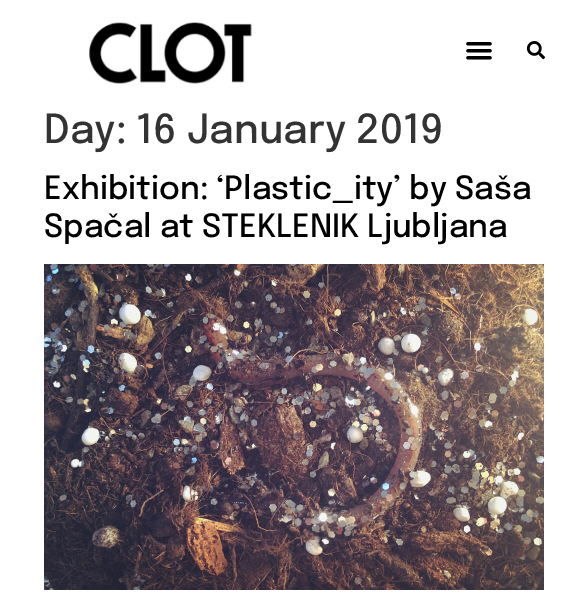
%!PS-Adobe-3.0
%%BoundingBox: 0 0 588 600
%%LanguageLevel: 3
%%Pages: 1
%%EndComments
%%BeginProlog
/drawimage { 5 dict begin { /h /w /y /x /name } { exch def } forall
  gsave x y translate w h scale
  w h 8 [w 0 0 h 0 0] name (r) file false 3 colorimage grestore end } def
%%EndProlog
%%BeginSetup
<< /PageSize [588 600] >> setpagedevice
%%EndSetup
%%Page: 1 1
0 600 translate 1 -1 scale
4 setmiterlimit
1 setgray
0 0 588 600 rectfill
(images/1.raw) 89 22 164 62 drawimage
(images/2.raw) 466 42 26 18 drawimage
(images/3.raw) 526 41 19 19 drawimage
(images/4.raw) 44 264 500 326 drawimage
/Epilogue-Medium [40 0 0 -40 0 0] selectfont
0.2 setgray
44 143 moveto (Day: 16 January 2019) show
/Epilogue-Medium [32 0 0 -32 0 0] selectfont
0 setgray
44 199 moveto (Exhibition: ‘Plastic_ity’ by Saša) show
44 237 moveto (Spačal at STEKLENIK Ljubljana) show
showpage
%%EOF
